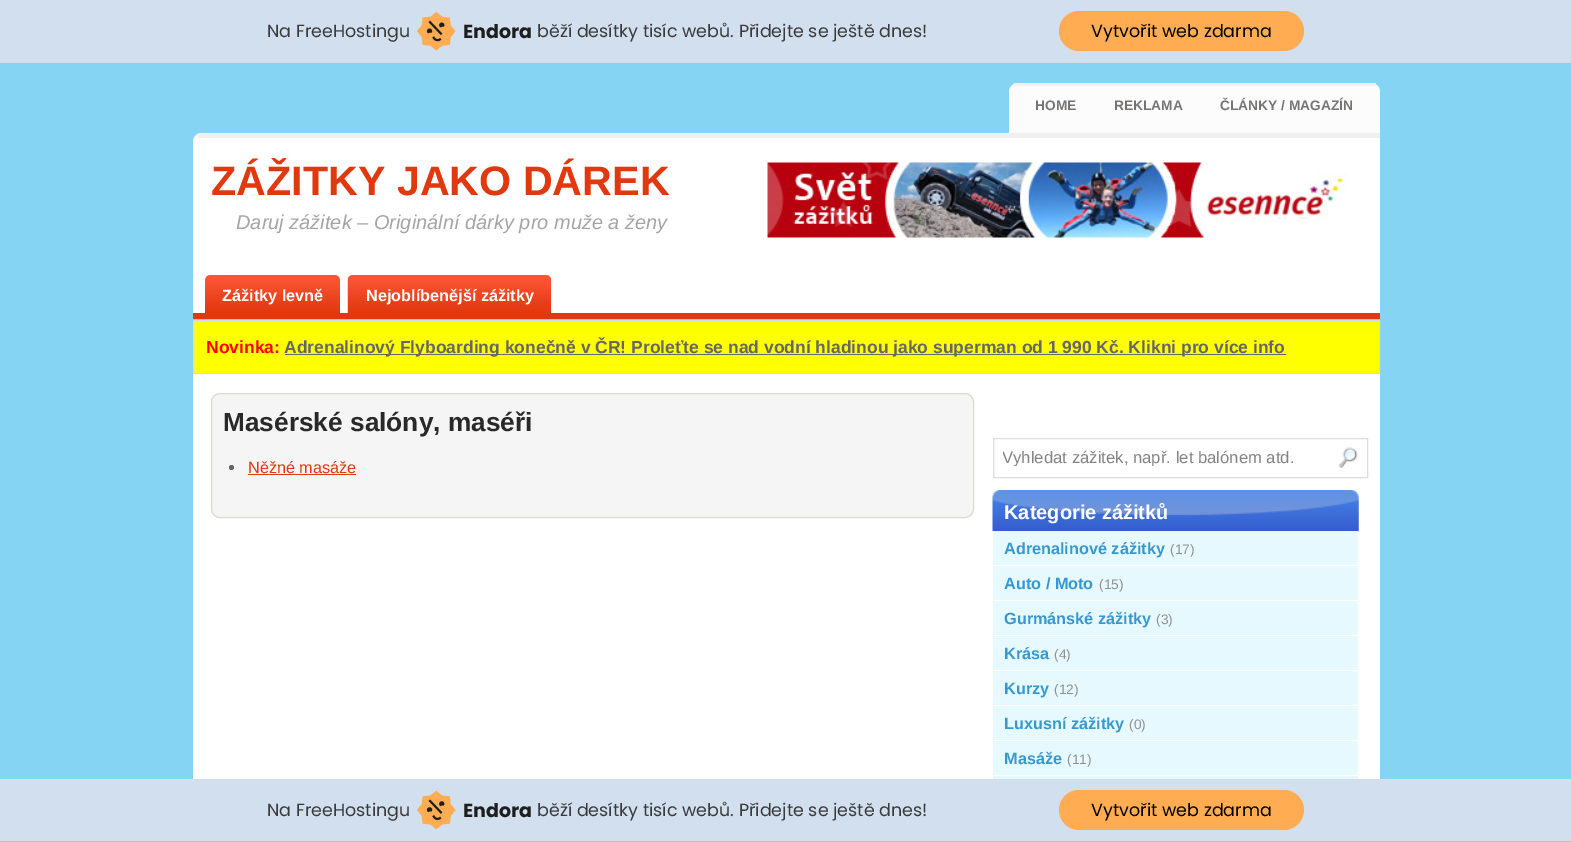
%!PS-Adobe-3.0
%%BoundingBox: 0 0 1571 842
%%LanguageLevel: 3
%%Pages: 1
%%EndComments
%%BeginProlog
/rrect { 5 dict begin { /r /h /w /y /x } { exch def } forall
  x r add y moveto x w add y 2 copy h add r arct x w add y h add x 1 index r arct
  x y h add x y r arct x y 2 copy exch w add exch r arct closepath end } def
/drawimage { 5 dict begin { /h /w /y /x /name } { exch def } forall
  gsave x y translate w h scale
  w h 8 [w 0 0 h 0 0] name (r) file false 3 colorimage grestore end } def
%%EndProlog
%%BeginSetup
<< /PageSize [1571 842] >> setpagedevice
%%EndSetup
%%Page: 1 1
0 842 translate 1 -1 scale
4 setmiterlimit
0.522 0.831 0.957 setrgbcolor
0 0 1571 842 rectfill
0.824 0.875 0.937 setrgbcolor
0 0 1571 63 rectfill
0.745 0.749 0.769 setrgbcolor
0 63 1571 1 rectfill
(images/1.raw) 416 11 40 40 drawimage
1 0.675 0.322 setrgbcolor
1059 11 245 40 20 rrect fill
0.988 setgray
newpath 1018 83 moveto 1371 83 lineto 1376 83 1380 87 1380 92 curveto 1380 133 lineto 1009 133 lineto 1009 92 lineto 1009 87 1013 83 1018 83 curveto closepath fill
0.941 setgray
1014 83 362 3 rectfill
1 setgray
newpath 202 133 moveto 1380 133 lineto 1380 275 lineto 193 275 lineto 193 142 lineto 193 137 197 133 202 133 curveto closepath fill
0.941 setgray
198 133 1182 5 rectfill
(images/2.raw) 767 162 581 76 drawimage
1 setgray
193 275 1187 38 rectfill
0.882 0.22 0.059 setrgbcolor
193 313 1187 6 rectfill
(images/3.raw) 205 275 135 38 drawimage
(images/4.raw) 347 275 205 38 drawimage
1 1 0 setrgbcolor
newpath 193.5 320.5 moveto 1379.5 320.5 lineto 1379.5 373.5 lineto 193.5 373.5 lineto closepath gsave fill grestore
0.776 0.875 0.945 setrgbcolor
stroke
0.4 setgray
285 354 1001 1 rectfill
1 setgray
193 374 1187 405 rectfill
0.961 setgray
211.5 393.5 762 124 8.5 rrect gsave fill grestore
0.859 0.859 0.804 setrgbcolor
stroke
0.408 0.384 0.384 setrgbcolor
newpath 231.5 467.5 2.5 0 360 arc closepath fill
0.882 0.22 0.059 setrgbcolor
248 474 108 1 rectfill
0.867 setgray
993.5 438.5 374 39 rectstroke
(images/5.raw) 1338 447 20 21 drawimage
(images/6.raw) 992 490 367 42 drawimage
0.902 0.976 1 setrgbcolor
993 531 365 34 rectfill
993 566 365 34 rectfill
993 601 365 34 rectfill
993 636 365 34 rectfill
993 671 365 34 rectfill
993 706 365 34 rectfill
993 741 365 34 rectfill
993 776 365 3 rectfill
0.824 0.875 0.937 setrgbcolor
0 779 1571 62 rectfill
0.745 0.749 0.769 setrgbcolor
0 841 1571 1 rectfill
(images/7.raw) 417 790 39 40 drawimage
1 0.675 0.322 setrgbcolor
1059 790 245 40 20 rrect fill
/Poppins-Regular [17.5 0 0 -17.5 0 0] selectfont
0.227 setgray
267 37 moveto (Na FreeHostingu) show
/Poppins-Bold [19 0 0 -19 0 0] selectfont
0.118 setgray
463 38 moveto (Endora) show
/Poppins-Regular [17.5 0 0 -17.5 0 0] selectfont
0.227 setgray
537 37 moveto (běží desítky tisíc webů. Přidejte se ještě dnes!) show
0 setgray
1091 37 moveto (Vytvořit web zdarma) show
/LiberationSans-Bold [13.75 0 0 -13.75 0 0] selectfont
0.471 0.455 0.455 setrgbcolor
1035 110 moveto (HOME) show
1114 110 moveto (REKLAMA) show
1220 110 moveto (ČLÁNKY / MAGAZÍN) show
/LiberationSans-Bold [41.25 0 0 -41.25 0 0] selectfont
0.882 0.22 0.059 setrgbcolor
211 195 moveto (ZÁŽITKY JAKO DÁREK) show
/LiberationSans-Italic [20 0 0 -20 0 0] selectfont
0.647 setgray
236 229 moveto (Daruj zážitek – Originální dárky pro muže a ženy) show
/LiberationSans-Bold [16.25 0 0 -16.25 0 0] selectfont
1 setgray
222 301 moveto (Zážitky levně) show
366 301 moveto (Nejoblíbenější zážitky) show
/LiberationSans-Bold [17.5 0 0 -17.5 0 0] selectfont
1 0 0 setrgbcolor
206 353 moveto (Novinka:) show
0.4 setgray
284 353 moveto (Adrenalinový Flyboarding konečně v ČR! Proleťte se nad vodní hladinou jako superman od 1 990 Kč. Klikni pro více info) show
/LiberationSans-Bold [26.25 0 0 -26.25 0 0] selectfont
0.161 setgray
223 431 moveto (Masérské salóny, maséři) show
/LiberationSans-Regular [16.25 0 0 -16.25 0 0] selectfont
0.882 0.22 0.059 setrgbcolor
248 473 moveto (Něžné masáže) show
gsave
1003 448 322 18 rectclip
/LiberationSans-Regular [16.7 0 0 -16.7 0 0] selectfont
0.522 0.51 0.51 setrgbcolor
1002 463 moveto (Vyhledat zážitek, např. let balónem atd.) show
grestore
/LiberationSans-Bold [20 0 0 -20 0 0] selectfont
1 setgray
1004 519 moveto (Kategorie zážitků) show
/LiberationSans-Bold [16.25 0 0 -16.25 0 0] selectfont
0.216 0.596 0.812 setrgbcolor
1004 554 moveto (Adrenalinové zážitky) show
/LiberationSans-Regular [13.75 0 0 -13.75 0 0] selectfont
0.569 setgray
1170 554 moveto (\(17\)) show
/LiberationSans-Bold [16.25 0 0 -16.25 0 0] selectfont
0.216 0.596 0.812 setrgbcolor
1004 589 moveto (Auto / Moto) show
/LiberationSans-Regular [13.75 0 0 -13.75 0 0] selectfont
0.569 setgray
1099 589 moveto (\(15\)) show
/LiberationSans-Bold [16.25 0 0 -16.25 0 0] selectfont
0.216 0.596 0.812 setrgbcolor
1004 624 moveto (Gurmánské zážitky) show
/LiberationSans-Regular [13.75 0 0 -13.75 0 0] selectfont
0.569 setgray
1156 624 moveto (\(3\)) show
/LiberationSans-Bold [16.25 0 0 -16.25 0 0] selectfont
0.216 0.596 0.812 setrgbcolor
1004 659 moveto (Krása) show
/LiberationSans-Regular [13.75 0 0 -13.75 0 0] selectfont
0.569 setgray
1054 659 moveto (\(4\)) show
/LiberationSans-Bold [16.25 0 0 -16.25 0 0] selectfont
0.216 0.596 0.812 setrgbcolor
1004 694 moveto (Kurzy) show
/LiberationSans-Regular [13.75 0 0 -13.75 0 0] selectfont
0.569 setgray
1054 694 moveto (\(12\)) show
/LiberationSans-Bold [16.25 0 0 -16.25 0 0] selectfont
0.216 0.596 0.812 setrgbcolor
1004 729 moveto (Luxusní zážitky) show
/LiberationSans-Regular [13.75 0 0 -13.75 0 0] selectfont
0.569 setgray
1129 729 moveto (\(0\)) show
/LiberationSans-Bold [16.25 0 0 -16.25 0 0] selectfont
0.216 0.596 0.812 setrgbcolor
1004 764 moveto (Masáže) show
/LiberationSans-Regular [13.75 0 0 -13.75 0 0] selectfont
0.569 setgray
1067 764 moveto (\(11\)) show
/Poppins-Regular [17.5 0 0 -17.5 0 0] selectfont
0.227 setgray
267 816 moveto (Na FreeHostingu) show
/Poppins-Bold [19 0 0 -19 0 0] selectfont
0.118 setgray
463 817 moveto (Endora) show
/Poppins-Regular [17.5 0 0 -17.5 0 0] selectfont
0.227 setgray
537 816 moveto (běží desítky tisíc webů. Přidejte se ještě dnes!) show
0 setgray
1091 816 moveto (Vytvořit web zdarma) show
showpage
%%EOF
